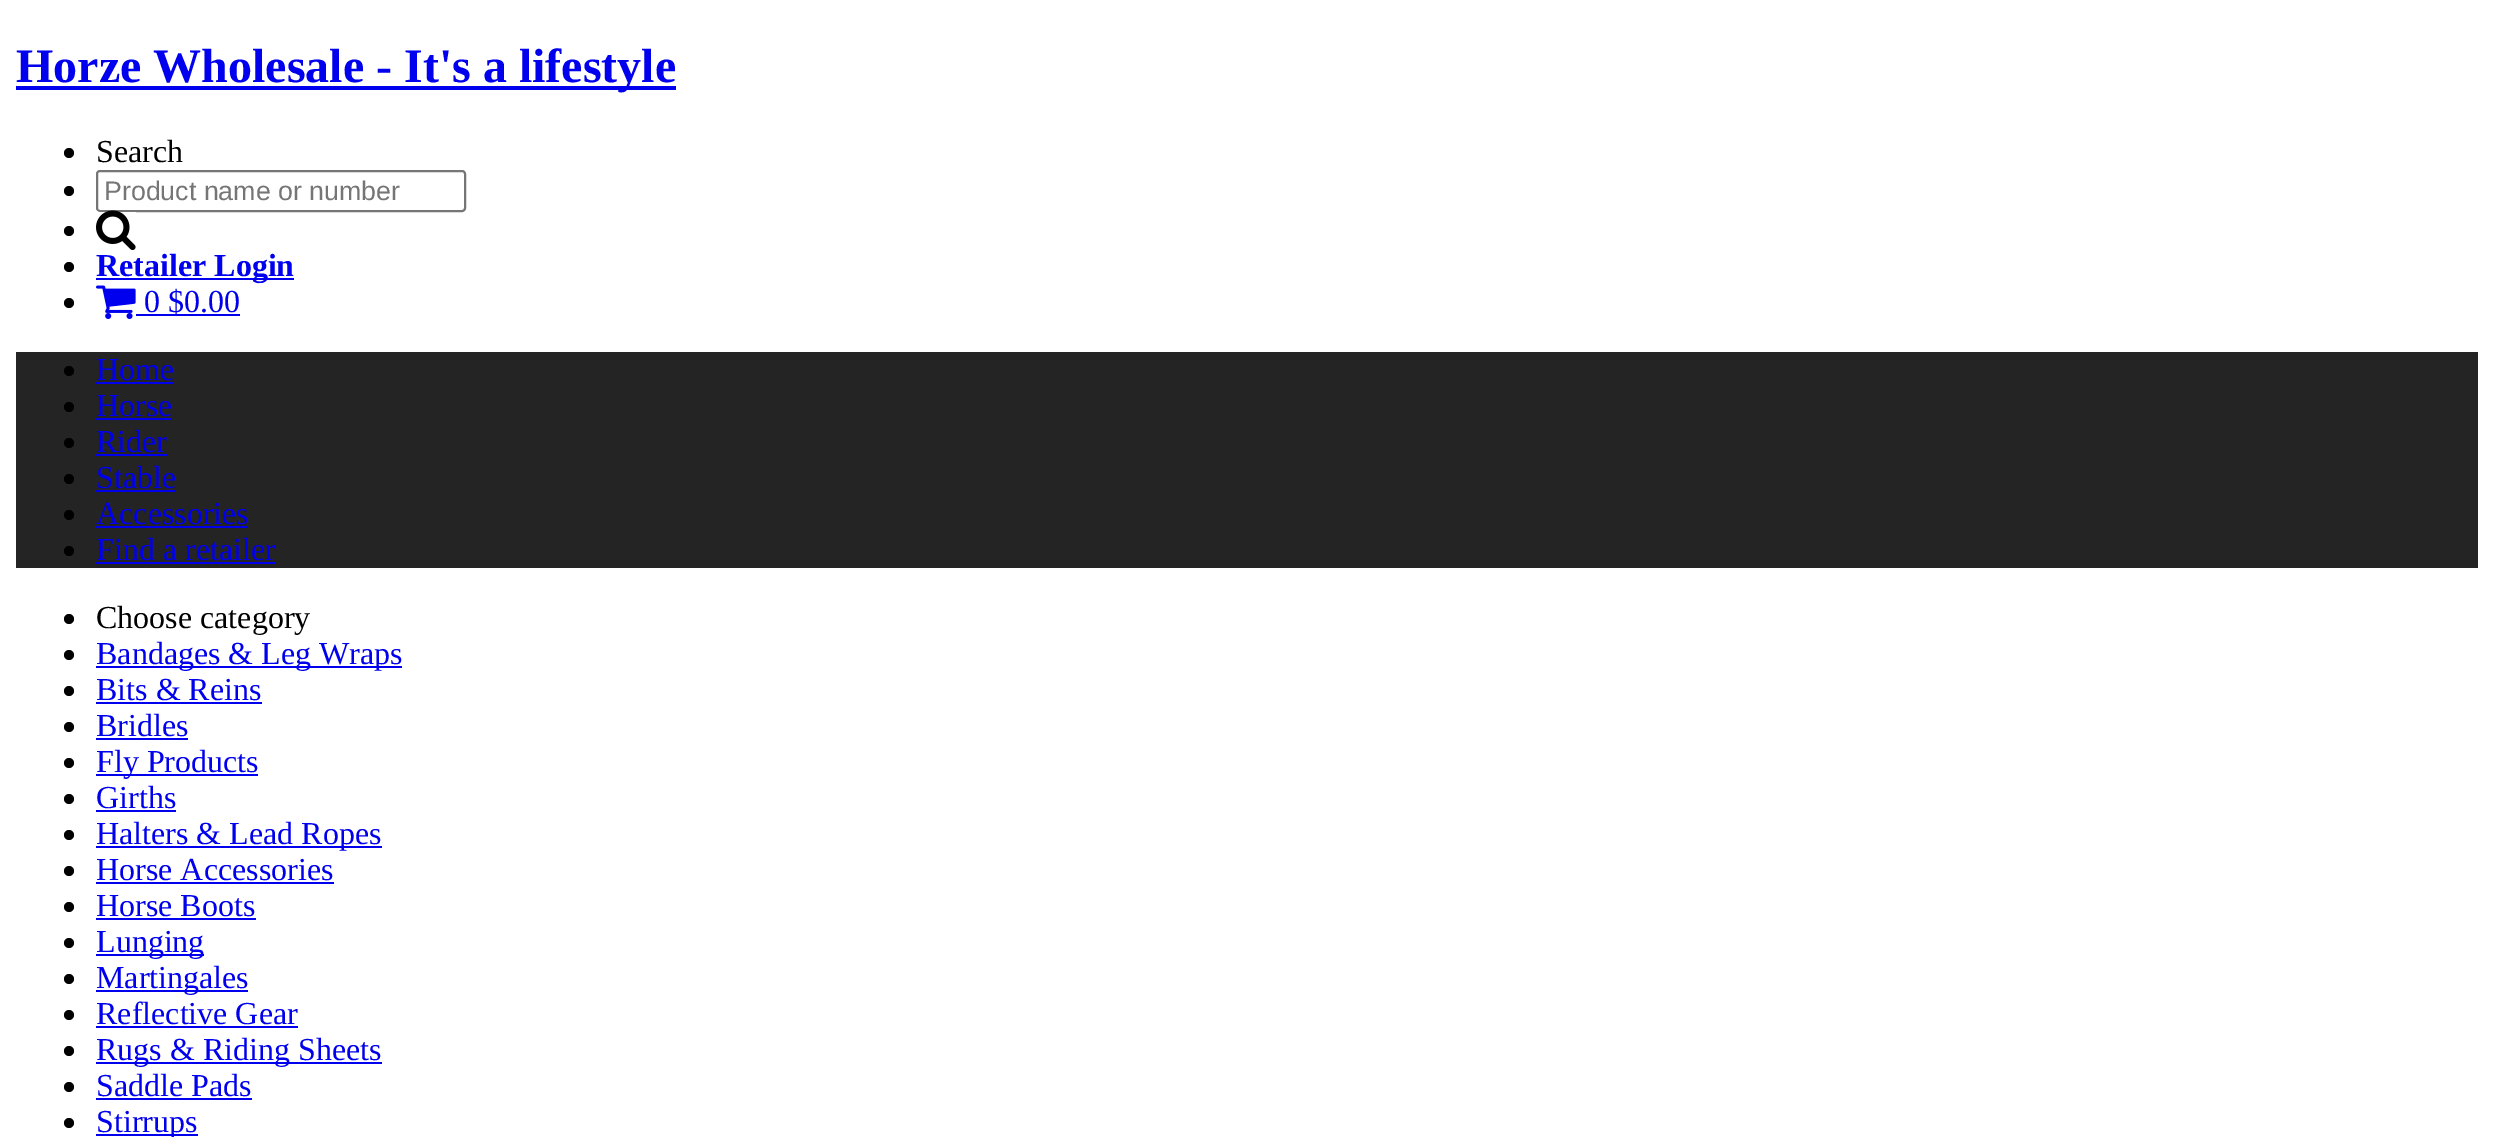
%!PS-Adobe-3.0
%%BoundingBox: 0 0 2494 1137
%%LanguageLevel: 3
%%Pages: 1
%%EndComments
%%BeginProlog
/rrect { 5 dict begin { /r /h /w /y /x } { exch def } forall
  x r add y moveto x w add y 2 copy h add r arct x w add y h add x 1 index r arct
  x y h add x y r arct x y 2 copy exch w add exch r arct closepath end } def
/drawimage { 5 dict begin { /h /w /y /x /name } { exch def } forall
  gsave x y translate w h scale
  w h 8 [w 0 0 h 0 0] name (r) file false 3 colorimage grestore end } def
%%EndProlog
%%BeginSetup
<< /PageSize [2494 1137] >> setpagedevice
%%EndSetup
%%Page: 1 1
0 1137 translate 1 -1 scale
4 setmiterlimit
1 setgray
0 0 2494 1137 rectfill
0 0 0.933 setrgbcolor
16 86 660 4 rectfill
0 setgray
newpath 69 153 5 0 360 arc closepath fill
newpath 69 191 5 0 360 arc closepath fill
0.463 setgray
2 setlinewidth
97 171 368 40 3 rrect stroke
0 setgray
newpath 69 231 5 0 360 arc closepath fill
(images/1.raw) 96 210 40 41 drawimage
newpath 69 267 5 0 360 arc closepath fill
0 0 0.933 setrgbcolor
96 278 198 2 rectfill
0 setgray
newpath 69 303 5 0 360 arc closepath fill
(images/2.raw) 96 285 40 34 drawimage
0 0 0.933 setrgbcolor
136 314 104 2 rectfill
0.141 setgray
16 352 2462 216 rectfill
0 setgray
newpath 69 371 5 0 360 arc closepath fill
0 0 0.933 setrgbcolor
96 382 78 2 rectfill
0 setgray
newpath 69 407 5 0 360 arc closepath fill
0 0 0.933 setrgbcolor
96 418 76 2 rectfill
0 setgray
newpath 69 443 5 0 360 arc closepath fill
0 0 0.933 setrgbcolor
96 454 72 2 rectfill
0 setgray
newpath 69 479 5 0 360 arc closepath fill
0 0 0.933 setrgbcolor
96 490 80 2 rectfill
0 setgray
newpath 69 515 5 0 360 arc closepath fill
0 0 0.933 setrgbcolor
96 526 152 2 rectfill
0 setgray
newpath 69 551 5 0 360 arc closepath fill
0 0 0.933 setrgbcolor
96 562 180 2 rectfill
0 setgray
newpath 69 619 5 0 360 arc closepath fill
newpath 69 655 5 0 360 arc closepath fill
0 0 0.933 setrgbcolor
96 666 306 2 rectfill
0 setgray
newpath 69 691 5 0 360 arc closepath fill
0 0 0.933 setrgbcolor
96 702 166 2 rectfill
0 setgray
newpath 69 727 5 0 360 arc closepath fill
0 0 0.933 setrgbcolor
96 738 92 2 rectfill
0 setgray
newpath 69 763 5 0 360 arc closepath fill
0 0 0.933 setrgbcolor
96 774 162 2 rectfill
0 setgray
newpath 69 799 5 0 360 arc closepath fill
0 0 0.933 setrgbcolor
96 810 80 2 rectfill
0 setgray
newpath 69 835 5 0 360 arc closepath fill
0 0 0.933 setrgbcolor
96 846 286 2 rectfill
0 setgray
newpath 69 871 5 0 360 arc closepath fill
0 0 0.933 setrgbcolor
96 882 238 2 rectfill
0 setgray
newpath 69 907 5 0 360 arc closepath fill
0 0 0.933 setrgbcolor
96 918 160 2 rectfill
0 setgray
newpath 69 943 5 0 360 arc closepath fill
0 0 0.933 setrgbcolor
96 954 108 2 rectfill
0 setgray
newpath 69 979 5 0 360 arc closepath fill
0 0 0.933 setrgbcolor
96 990 152 2 rectfill
0 setgray
newpath 69 1015 5 0 360 arc closepath fill
0 0 0.933 setrgbcolor
96 1026 202 2 rectfill
0 setgray
newpath 69 1051 5 0 360 arc closepath fill
0 0 0.933 setrgbcolor
96 1062 286 2 rectfill
0 setgray
newpath 69 1087 5 0 360 arc closepath fill
0 0 0.933 setrgbcolor
96 1098 156 2 rectfill
0 setgray
newpath 69 1123 5 0 360 arc closepath fill
0 0 0.933 setrgbcolor
96 1134 102 2 rectfill
/LiberationSerif-Bold [48 0 0 -48 0 0] selectfont
16 82 moveto (Horze Wholesale - It's a lifestyle) show
/LiberationSerif-Regular [32 0 0 -32 0 0] selectfont
0 setgray
96 162 moveto (Search) show
/LiberationSans-Regular [26.75 0 0 -26.75 0 0] selectfont
0.459 setgray
104 200 moveto (Product name or number) show
/LiberationSerif-Bold [32 0 0 -32 0 0] selectfont
0 0 0.933 setrgbcolor
96 276 moveto (Retailer Login) show
/LiberationSerif-Regular [32 0 0 -32 0 0] selectfont
144 312 moveto (0 $0.00) show
96 380 moveto (Home) show
96 416 moveto (Horse) show
96 452 moveto (Rider) show
96 488 moveto (Stable) show
96 524 moveto (Accessories) show
96 560 moveto (Find a retailer) show
0 setgray
96 628 moveto (Choose category) show
0 0 0.933 setrgbcolor
96 664 moveto (Bandages & Leg Wraps) show
96 700 moveto (Bits & Reins) show
96 736 moveto (Bridles) show
96 772 moveto (Fly Products) show
96 808 moveto (Girths) show
96 844 moveto (Halters & Lead Ropes) show
96 880 moveto (Horse Accessories) show
96 916 moveto (Horse Boots) show
96 952 moveto (Lunging) show
96 988 moveto (Martingales) show
96 1024 moveto (Reflective Gear) show
96 1060 moveto (Rugs & Riding Sheets) show
96 1096 moveto (Saddle Pads) show
96 1132 moveto (Stirrups) show
showpage
%%EOF
